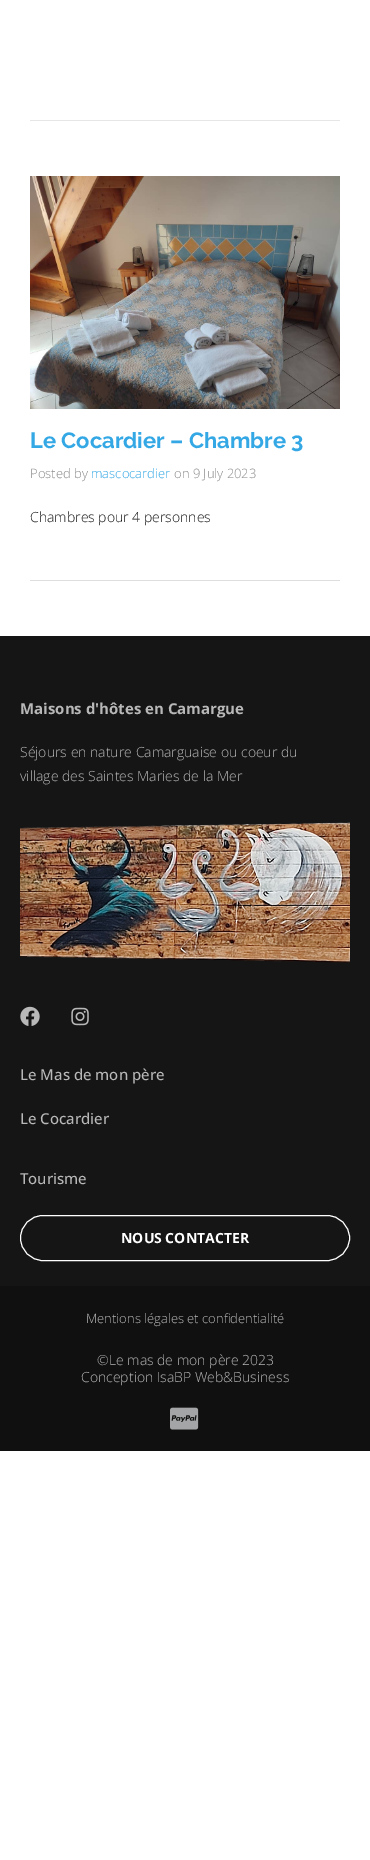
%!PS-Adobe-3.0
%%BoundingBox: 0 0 370 1860
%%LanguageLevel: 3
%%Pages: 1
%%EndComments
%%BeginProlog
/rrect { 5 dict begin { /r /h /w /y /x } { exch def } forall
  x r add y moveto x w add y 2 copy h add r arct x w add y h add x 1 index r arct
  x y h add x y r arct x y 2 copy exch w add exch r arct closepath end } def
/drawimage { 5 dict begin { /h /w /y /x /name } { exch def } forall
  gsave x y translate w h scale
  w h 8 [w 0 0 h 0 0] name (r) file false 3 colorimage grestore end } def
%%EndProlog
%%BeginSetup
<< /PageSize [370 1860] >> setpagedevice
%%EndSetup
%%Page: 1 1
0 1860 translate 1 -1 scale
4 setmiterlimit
1 setgray
0 0 370 1860 rectfill
0.902 setgray
30 120 310 1 rectfill
(images/1.raw) 30 176 310 233 drawimage
0.871 setgray
30 580 310 1 rectfill
0.082 setgray
0 636 370 650 rectfill
(images/2.raw) 20 822 330 141 drawimage
(images/3.raw) 20 1006 20 20 drawimage
(images/4.raw) 71 1007 18 19 drawimage
1 setgray
20.5 1215.5 329 45 22.5 rrect stroke
0.063 setgray
0 1286 370 165 rectfill
(images/5.raw) 170 1407 29 23 drawimage
/Raleway-Bold [22 0 0 -22 0 0] selectfont
0.204 0.659 0.898 setrgbcolor
30 448 moveto (Le Cocardier – Chambre 3) show
/OpenSans-Light [13 0 0 -13 0 0] selectfont
0.545 setgray
30 478 moveto (Posted by) show
0.204 0.659 0.898 setrgbcolor
91 478 moveto (mascocardier) show
0.545 setgray
174 478 moveto (on 9 July 2023) show
/OpenSans-Light [14 0 0 -14 0 0] selectfont
0.082 setgray
30 522 moveto (Chambres pour 4 personnes) show
/OpenSans-Bold [15 0 0 -15 0 0] selectfont
0.725 0.722 0.722 setrgbcolor
20 714 moveto (Maisons d'hôtes en Camargue) show
/OpenSans-Light [14 0 0 -14 0 0] selectfont
20 757 moveto (Séjours en nature Camarguaise ou coeur du) show
20 781 moveto (village des Saintes Maries de la Mer) show
/OpenSans-Medium [15 0 0 -15 0 0] selectfont
20 1080 moveto (Le Mas de mon père) show
20 1124 moveto (Le Cocardier) show
20 1184 moveto (Tourisme) show
/OpenSans-Bold [14 0 0 -14 0 0] selectfont
1 setgray
121 1243 moveto (NOUS CONTACTER) show
/OpenSans-Light [13 0 0 -13 0 0] selectfont
0.725 0.722 0.722 setrgbcolor
86 1323 moveto (Mentions légales et confidentialité) show
/OpenSans-Light [14 0 0 -14 0 0] selectfont
97 1365 moveto (©Le mas de mon père 2023) show
81 1382 moveto (Conception IsaBP Web&Business) show
showpage
%%EOF
